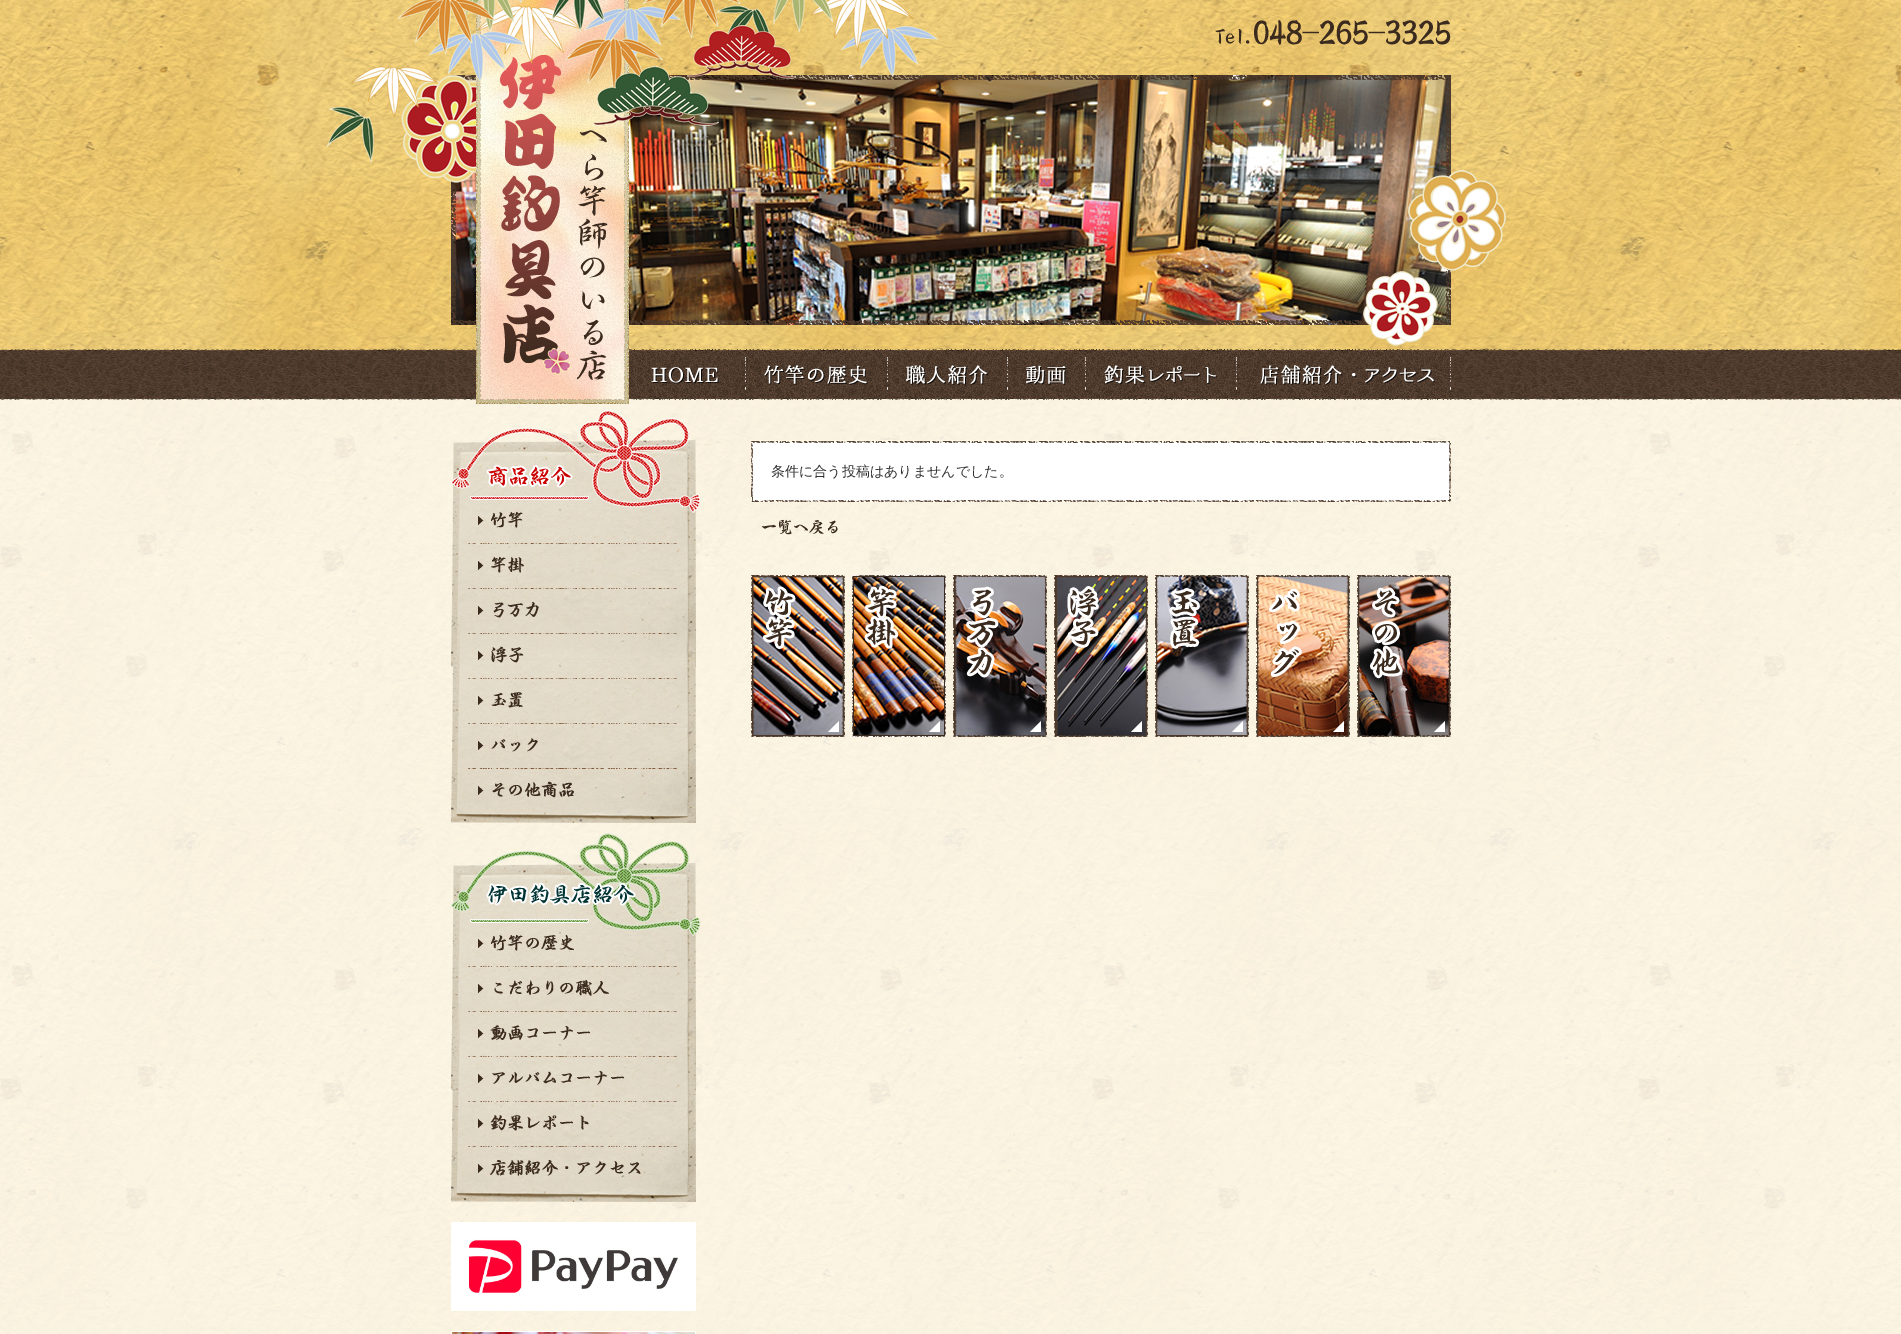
%!PS-Adobe-3.0
%%BoundingBox: 0 0 1901 1334
%%LanguageLevel: 3
%%Pages: 1
%%EndComments
%%BeginProlog
/drawimage { 5 dict begin { /h /w /y /x /name } { exch def } forall
  gsave x y translate w h scale
  w h 8 [w 0 0 h 0 0] name (r) file false 3 colorimage grestore end } def
%%EndProlog
%%BeginSetup
<< /PageSize [1901 1334] >> setpagedevice
%%EndSetup
%%Page: 1 1
0 1334 translate 1 -1 scale
4 setmiterlimit
1 setgray
0 0 1901 1334 rectfill
(images/1.raw) 0 400 1901 934 drawimage
(images/2.raw) 0 0 1901 400 drawimage
(images/7.raw) 451 75 1000 250 drawimage
(images/4.raw) 476 0 153 404 drawimage
(images/6.raw) 401 75 75 108 drawimage
(images/3.raw) 327 0 611 163 drawimage
(images/5.raw) 1215 20 236 25 drawimage
(images/8.raw) 1363 170 143 176 drawimage
(images/9.raw) 629 349 117 51 drawimage
(images/10.raw) 746 349 142 51 drawimage
(images/11.raw) 888 349 120 51 drawimage
(images/12.raw) 1008 349 79 51 drawimage
(images/13.raw) 1087 349 150 51 drawimage
(images/14.raw) 1237 349 214 51 drawimage
(images/16.raw) 453 440 243 59 drawimage
(images/17.raw) 452 499 244 45 drawimage
(images/15.raw) 451 410 250 103 drawimage
(images/18.raw) 451 544 245 45 drawimage
(images/19.raw) 451 589 245 45 drawimage
(images/20.raw) 451 634 245 45 drawimage
(images/21.raw) 451 679 245 45 drawimage
(images/22.raw) 451 724 245 45 drawimage
(images/23.raw) 451 769 245 54 drawimage
(images/25.raw) 451 863 245 59 drawimage
(images/26.raw) 451 922 245 45 drawimage
(images/24.raw) 451 833 250 103 drawimage
(images/27.raw) 451 967 245 45 drawimage
(images/28.raw) 451 1012 245 45 drawimage
(images/29.raw) 451 1057 245 45 drawimage
(images/30.raw) 451 1102 245 45 drawimage
(images/31.raw) 451 1147 245 55 drawimage
(images/32.raw) 451 1222 245 89 drawimage
(images/33.raw) 451 1331 245 3 drawimage
(images/34.raw) 751 443 700 59 drawimage
(images/35.raw) 751 440 700 3 drawimage
(images/36.raw) 761 519 77 16 drawimage
(images/37.raw) 751 575 94 162 drawimage
(images/38.raw) 852 575 94 162 drawimage
(images/39.raw) 953 575 94 162 drawimage
(images/40.raw) 1054 575 94 162 drawimage
(images/41.raw) 1155 575 94 162 drawimage
(images/42.raw) 1256 575 94 162 drawimage
(images/43.raw) 1357 575 94 162 drawimage
/WenQuanYiZenHei-Medium [14 0 0 -14 0 0] selectfont
0.2 setgray
771 476 moveto (条件に合う投稿はありませんでした。) show
showpage
%%EOF
